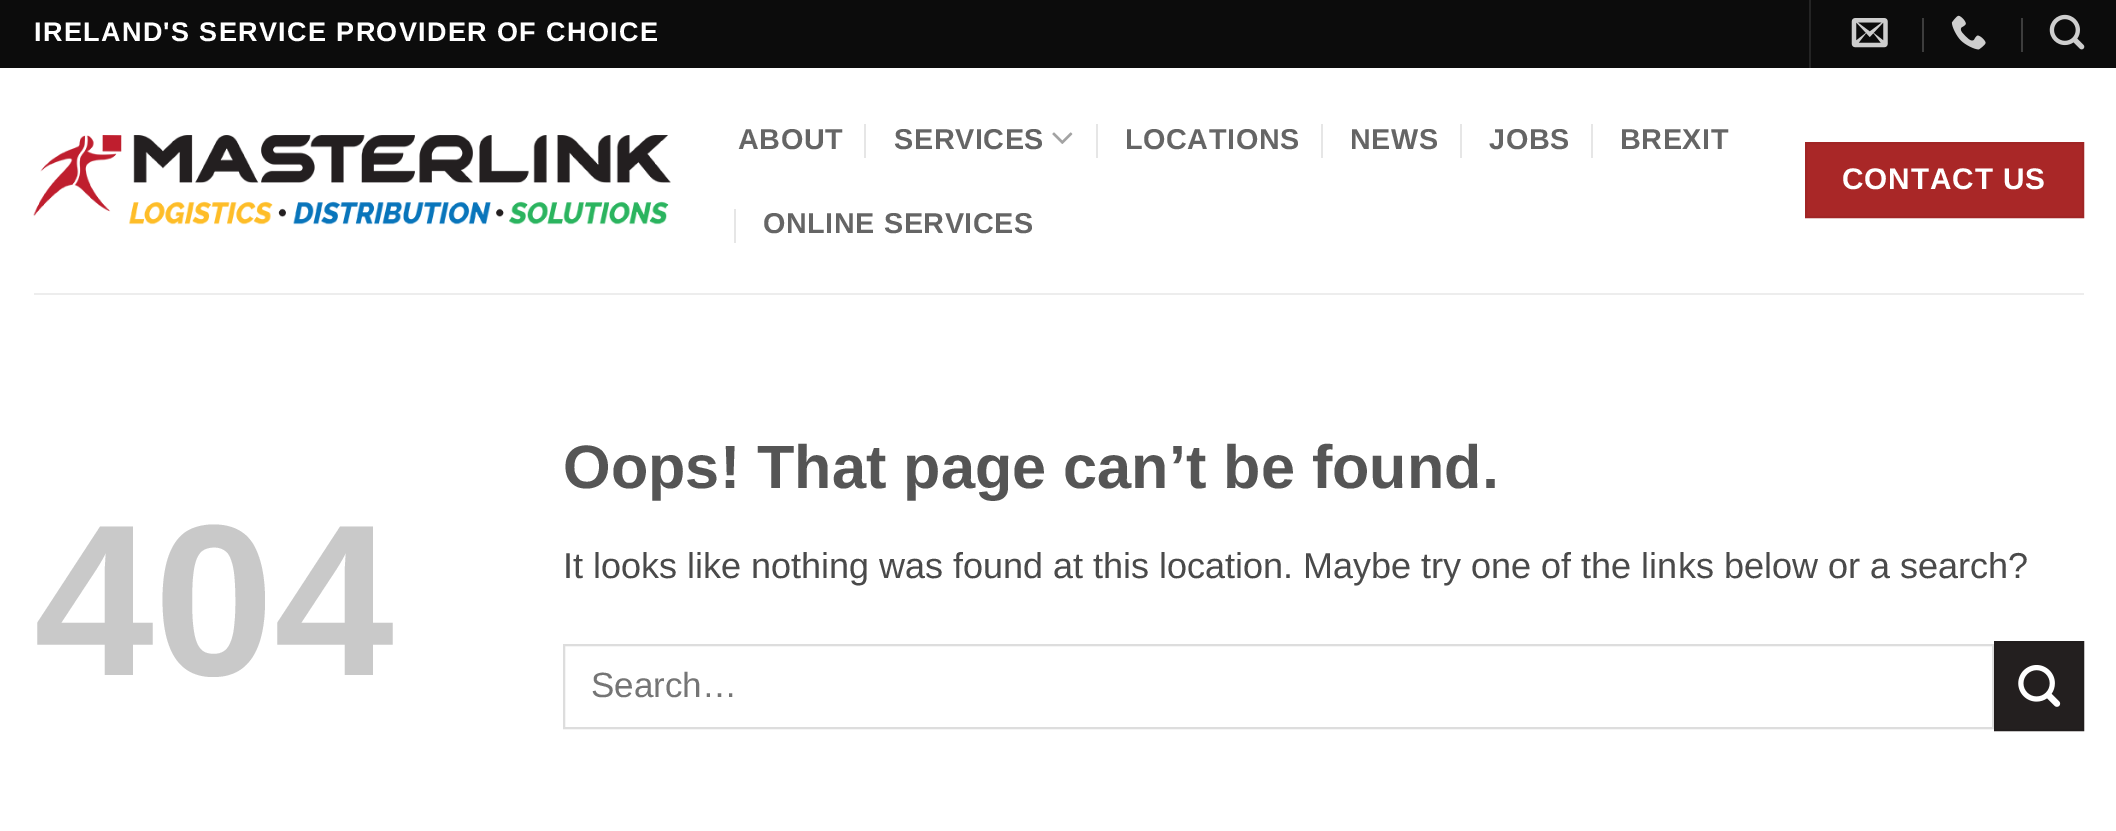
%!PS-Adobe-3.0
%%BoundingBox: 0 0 2116 831
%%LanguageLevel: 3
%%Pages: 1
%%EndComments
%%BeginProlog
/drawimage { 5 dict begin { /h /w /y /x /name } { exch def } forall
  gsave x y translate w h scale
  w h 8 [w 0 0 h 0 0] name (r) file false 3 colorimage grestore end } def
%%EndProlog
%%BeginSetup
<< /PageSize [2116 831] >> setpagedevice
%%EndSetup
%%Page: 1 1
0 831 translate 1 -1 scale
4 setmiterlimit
1 setgray
0 0 2116 831 rectfill
0.047 setgray
0 0 2116 68 rectfill
0.141 setgray
1809 0 2 68 rectfill
(images/1.raw) 1851 18 37 30 drawimage
0.239 setgray
1922 18 2 34 rectfill
(images/2.raw) 1951 15 35 35 drawimage
2021 18 2 34 rectfill
(images/3.raw) 2049 14 36 36 drawimage
(images/4.raw) 33 135 638 90 drawimage
0.902 setgray
864 124 2 34 rectfill
(images/5.raw) 1052 132 21 12 drawimage
1096 124 2 34 rectfill
1321 124 2 34 rectfill
1460 124 2 34 rectfill
1591 124 2 34 rectfill
734 209 2 34 rectfill
0.663 0.153 0.153 setrgbcolor
newpath 1806 143 moveto 2083 143 lineto 2083 217 lineto 1806 217 lineto closepath gsave fill grestore
0.631 0.145 0.145 setrgbcolor
2 setlinewidth
stroke
0.929 setgray
34 293 2050 2 rectfill
0.867 setgray
564 645 1429 83 rectstroke
0.137 0.122 0.122 setrgbcolor
newpath 1995 642 moveto 2083 642 lineto 2083 730 lineto 1995 730 lineto closepath gsave fill grestore
0.129 0.114 0.114 setrgbcolor
stroke
(images/6.raw) 2018 665 43 42 drawimage
/LiberationSans-Bold [27 0 0 -27 0 0] selectfont
1 setgray
34 41 moveto 1.35 0 (IRELAND'S SERVICE PROVIDER OF CHOICE) ashow
/LiberationSans-Bold [28.75 0 0 -28.75 0 0] selectfont
0.396 setgray
738 149 moveto 0.6 0 (ABOUT) ashow
894 149 moveto 0.6 0 (SERVICES) ashow
1125 149 moveto 0.6 0 (LOCATIONS) ashow
1350 149 moveto 0.6 0 (NEWS) ashow
1489 149 moveto 0.6 0 (JOBS) ashow
1620 149 moveto 0.6 0 (BREXIT) ashow
763 233 moveto 0.6 0 (ONLINE SERVICES) ashow
/LiberationSans-Bold [29.75 0 0 -29.75 0 0] selectfont
1 setgray
1842 189 moveto 0.9 0 (CONTACT US) ashow
/LiberationSans-Bold [216 0 0 -216 0 0] selectfont
0.788 setgray
34 675 moveto (404) show
/LiberationSans-Bold [61.25 0 0 -61.25 0 0] selectfont
0.333 setgray
563 488 moveto (Oops! That page can’t be found.) show
/LiberationSans-Regular [36 0 0 -36 0 0] selectfont
0.29 setgray
563 578 moveto (It looks like nothing was found at this location. Maybe try one of the links below or a search?) show
/LiberationSans-Regular [35 0 0 -35 0 0] selectfont
0.459 setgray
591 697 moveto (Search…) show
showpage
%%EOF
